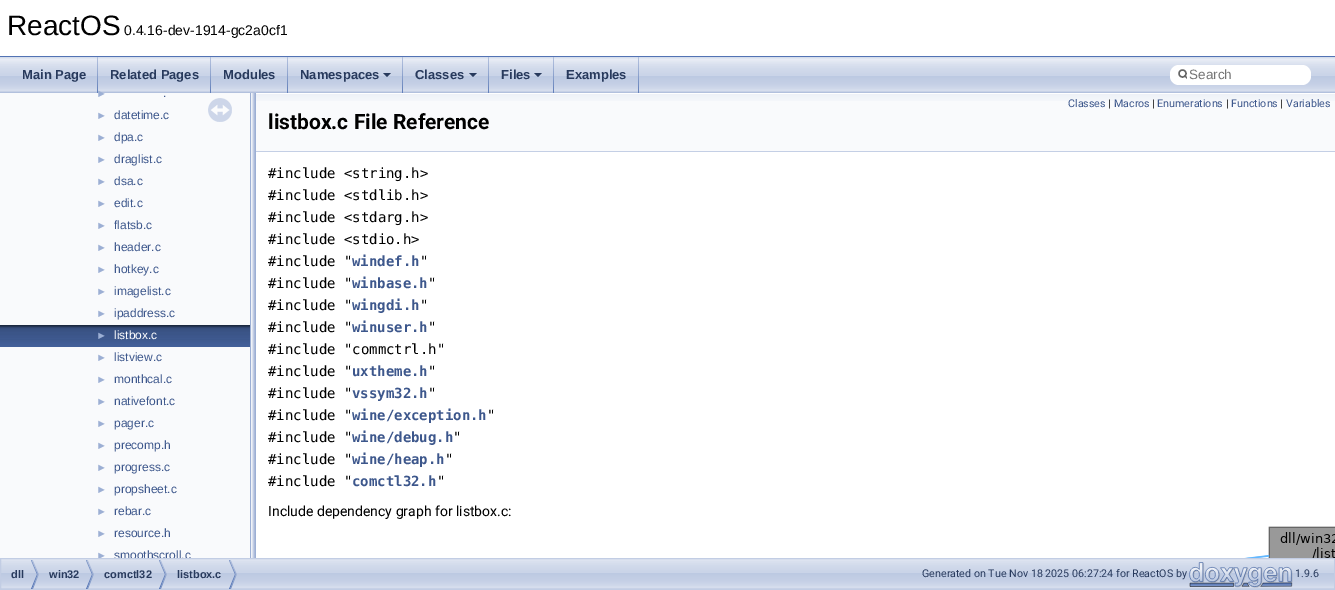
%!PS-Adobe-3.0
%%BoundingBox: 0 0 1335 590
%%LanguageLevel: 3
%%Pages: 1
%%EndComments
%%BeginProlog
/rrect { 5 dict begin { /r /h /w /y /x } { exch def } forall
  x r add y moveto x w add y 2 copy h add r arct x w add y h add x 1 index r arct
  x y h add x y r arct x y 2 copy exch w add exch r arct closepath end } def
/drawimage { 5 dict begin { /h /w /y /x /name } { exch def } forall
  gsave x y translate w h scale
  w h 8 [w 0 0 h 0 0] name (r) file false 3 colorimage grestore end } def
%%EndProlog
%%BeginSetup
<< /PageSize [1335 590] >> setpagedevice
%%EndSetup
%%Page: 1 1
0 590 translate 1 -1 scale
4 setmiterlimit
1 setgray
0 0 1335 590 rectfill
0.325 0.451 0.706 setrgbcolor
0 56 1335 1 rectfill
(images/1.raw) 0 57 1335 36 drawimage
(images/2.raw) 97 57 1 36 drawimage
(images/2.raw) 210 57 1 36 drawimage
(images/2.raw) 287 57 1 36 drawimage
(images/2.raw) 402 57 1 36 drawimage
0.157 0.227 0.365 setrgbcolor
newpath 383 73 moveto 391 73 lineto 387 77 lineto closepath fill
(images/2.raw) 488 57 1 36 drawimage
newpath 469 73 moveto 477 73 lineto 473 77 lineto closepath fill
(images/2.raw) 553 57 1 36 drawimage
newpath 534 73 moveto 542 73 lineto 538 77 lineto closepath fill
(images/2.raw) 638 57 1 36 drawimage
1 setgray
1170 65 141 20 9 rrect fill
0.396 setgray
1.4 setlinewidth
newpath 1182.5 73.5 3.5 0 360 arc closepath stroke
gsave
1177 65 10 19 rectclip
1 setlinecap
newpath 1185 76 moveto 1188 79 lineto stroke
grestore
0.976 0.98 0.988 setrgbcolor
0 93 250 465 rectfill
(images/3.raw) 0 325 250 22 drawimage
(images/4.raw) 208 98 24 24 drawimage
(images/5.raw) 250 93 6 465 drawimage
256 101 1079 50 rectfill
(images/6.raw) 256 93 1079 8 drawimage
0.769 0.812 0.898 setrgbcolor
256 151 1079 1 rectfill
(images/7.raw) 1244 526 91 32 drawimage
(images/8.raw) 1 559 1333 30 drawimage
0.761 0.804 0.894 setrgbcolor
1 setlinewidth
0.5 558.5 1334 31 rectstroke
(images/9.raw) 31 560 8 29 drawimage
(images/9.raw) 86 560 8 29 drawimage
(images/9.raw) 159 560 8 29 drawimage
(images/9.raw) 229 560 8 29 drawimage
(images/10.raw) 1189 562 104 26 drawimage
/LiberationSans-Regular [28 0 0 -28 0 0] selectfont
0 setgray
7 35 moveto (ReactOS) show
/LiberationSans-Regular [14 0 0 -14 0 0] selectfont
124 35 moveto (0.4.16-dev-1914-gc2a0cf1) show
/LiberationSans-Bold [13 0 0 -13 0 0] selectfont
0.157 0.227 0.365 setrgbcolor
22 79 moveto (Main Page) show
110 79 moveto (Related Pages) show
223 79 moveto (Modules) show
300 79 moveto (Namespaces) show
415 79 moveto (Classes) show
501 79 moveto (Files) show
566 79 moveto (Examples) show
/LiberationSans-Regular [13.5 0 0 -13.5 0 0] selectfont
0.459 setgray
1189 79 moveto (Search) show
/LiberationSans-Regular [11 0 0 -11 0 0] selectfont
0.612 0.686 0.831 setrgbcolor
96 97 moveto (►) show
/LiberationSans-Regular [12 0 0 -12 0 0] selectfont
0.239 0.341 0.549 setrgbcolor
163 97 moveto (.) show
/LiberationSans-Regular [11 0 0 -11 0 0] selectfont
0.612 0.686 0.831 setrgbcolor
96 119 moveto (►) show
/LiberationSans-Regular [12 0 0 -12 0 0] selectfont
0.239 0.341 0.549 setrgbcolor
114 119 moveto (datetime.c) show
/LiberationSans-Regular [11 0 0 -11 0 0] selectfont
0.612 0.686 0.831 setrgbcolor
96 141 moveto (►) show
/LiberationSans-Regular [12 0 0 -12 0 0] selectfont
0.239 0.341 0.549 setrgbcolor
114 141 moveto (dpa.c) show
/LiberationSans-Regular [11 0 0 -11 0 0] selectfont
0.612 0.686 0.831 setrgbcolor
96 163 moveto (►) show
/LiberationSans-Regular [12 0 0 -12 0 0] selectfont
0.239 0.341 0.549 setrgbcolor
114 163 moveto (draglist.c) show
/LiberationSans-Regular [11 0 0 -11 0 0] selectfont
0.612 0.686 0.831 setrgbcolor
96 185 moveto (►) show
/LiberationSans-Regular [12 0 0 -12 0 0] selectfont
0.239 0.341 0.549 setrgbcolor
114 185 moveto (dsa.c) show
/LiberationSans-Regular [11 0 0 -11 0 0] selectfont
0.612 0.686 0.831 setrgbcolor
96 207 moveto (►) show
/LiberationSans-Regular [12 0 0 -12 0 0] selectfont
0.239 0.341 0.549 setrgbcolor
114 207 moveto (edit.c) show
/LiberationSans-Regular [11 0 0 -11 0 0] selectfont
0.612 0.686 0.831 setrgbcolor
96 229 moveto (►) show
/LiberationSans-Regular [12 0 0 -12 0 0] selectfont
0.239 0.341 0.549 setrgbcolor
114 229 moveto (flatsb.c) show
/LiberationSans-Regular [11 0 0 -11 0 0] selectfont
0.612 0.686 0.831 setrgbcolor
96 251 moveto (►) show
/LiberationSans-Regular [12 0 0 -12 0 0] selectfont
0.239 0.341 0.549 setrgbcolor
114 251 moveto (header.c) show
/LiberationSans-Regular [11 0 0 -11 0 0] selectfont
0.612 0.686 0.831 setrgbcolor
96 273 moveto (►) show
/LiberationSans-Regular [12 0 0 -12 0 0] selectfont
0.239 0.341 0.549 setrgbcolor
114 273 moveto (hotkey.c) show
/LiberationSans-Regular [11 0 0 -11 0 0] selectfont
0.612 0.686 0.831 setrgbcolor
96 295 moveto (►) show
/LiberationSans-Regular [12 0 0 -12 0 0] selectfont
0.239 0.341 0.549 setrgbcolor
114 295 moveto (imagelist.c) show
/LiberationSans-Regular [11 0 0 -11 0 0] selectfont
0.612 0.686 0.831 setrgbcolor
96 317 moveto (►) show
/LiberationSans-Regular [12 0 0 -12 0 0] selectfont
0.239 0.341 0.549 setrgbcolor
114 317 moveto (ipaddress.c) show
/LiberationSans-Regular [11 0 0 -11 0 0] selectfont
0.612 0.686 0.831 setrgbcolor
96 339 moveto (►) show
/LiberationSans-Regular [12 0 0 -12 0 0] selectfont
1 setgray
114 339 moveto (listbox.c) show
/LiberationSans-Regular [11 0 0 -11 0 0] selectfont
0.612 0.686 0.831 setrgbcolor
96 361 moveto (►) show
/LiberationSans-Regular [12 0 0 -12 0 0] selectfont
0.239 0.341 0.549 setrgbcolor
114 361 moveto (listview.c) show
/LiberationSans-Regular [11 0 0 -11 0 0] selectfont
0.612 0.686 0.831 setrgbcolor
96 383 moveto (►) show
/LiberationSans-Regular [12 0 0 -12 0 0] selectfont
0.239 0.341 0.549 setrgbcolor
114 383 moveto (monthcal.c) show
/LiberationSans-Regular [11 0 0 -11 0 0] selectfont
0.612 0.686 0.831 setrgbcolor
96 405 moveto (►) show
/LiberationSans-Regular [12 0 0 -12 0 0] selectfont
0.239 0.341 0.549 setrgbcolor
114 405 moveto (nativefont.c) show
/LiberationSans-Regular [11 0 0 -11 0 0] selectfont
0.612 0.686 0.831 setrgbcolor
96 427 moveto (►) show
/LiberationSans-Regular [12 0 0 -12 0 0] selectfont
0.239 0.341 0.549 setrgbcolor
114 427 moveto (pager.c) show
/LiberationSans-Regular [11 0 0 -11 0 0] selectfont
0.612 0.686 0.831 setrgbcolor
96 449 moveto (►) show
/LiberationSans-Regular [12 0 0 -12 0 0] selectfont
0.239 0.341 0.549 setrgbcolor
114 449 moveto (precomp.h) show
/LiberationSans-Regular [11 0 0 -11 0 0] selectfont
0.612 0.686 0.831 setrgbcolor
96 471 moveto (►) show
/LiberationSans-Regular [12 0 0 -12 0 0] selectfont
0.239 0.341 0.549 setrgbcolor
114 471 moveto (progress.c) show
/LiberationSans-Regular [11 0 0 -11 0 0] selectfont
0.612 0.686 0.831 setrgbcolor
96 493 moveto (►) show
/LiberationSans-Regular [12 0 0 -12 0 0] selectfont
0.239 0.341 0.549 setrgbcolor
114 493 moveto (propsheet.c) show
/LiberationSans-Regular [11 0 0 -11 0 0] selectfont
0.612 0.686 0.831 setrgbcolor
96 515 moveto (►) show
/LiberationSans-Regular [12 0 0 -12 0 0] selectfont
0.239 0.341 0.549 setrgbcolor
114 515 moveto (rebar.c) show
/LiberationSans-Regular [11 0 0 -11 0 0] selectfont
0.612 0.686 0.831 setrgbcolor
96 537 moveto (►) show
/LiberationSans-Regular [12 0 0 -12 0 0] selectfont
0.239 0.341 0.549 setrgbcolor
114 537 moveto (resource.h) show
gsave
0 93 250 465 rectclip
/LiberationSans-Regular [11 0 0 -11 0 0] selectfont
0.612 0.686 0.831 setrgbcolor
96 559 moveto (►) show
/LiberationSans-Regular [12 0 0 -12 0 0] selectfont
0.239 0.341 0.549 setrgbcolor
114 559 moveto (smoothscroll.c) show
grestore
/Roboto-Regular [10.7 0 0 -10.7 0 0] selectfont
1068 107 moveto (Classes) show
0 setgray
1108 107 moveto (|) show
0.239 0.341 0.549 setrgbcolor
1114 107 moveto (Macros) show
0 setgray
1152 107 moveto (|) show
0.239 0.341 0.549 setrgbcolor
1157 107 moveto (Enumerations) show
0 setgray
1226 107 moveto (|) show
0.239 0.341 0.549 setrgbcolor
1231 107 moveto (Functions) show
0 setgray
1280 107 moveto (|) show
0.239 0.341 0.549 setrgbcolor
1286 107 moveto (Variables) show
/Roboto-Bold [21 0 0 -21 0 0] selectfont
0 setgray
268 129 moveto (listbox.c File Reference) show
/DejaVuSansMono-Regular [14 0 0 -14 0 0] selectfont
268 178 moveto (#include <string.h>) show
268 200 moveto (#include <stdlib.h>) show
268 222 moveto (#include <stdarg.h>) show
268 244 moveto (#include <stdio.h>) show
268 266 moveto (#include ") show
/DejaVuSansMono-Bold [14 0 0 -14 0 0] selectfont
0.239 0.341 0.549 setrgbcolor
352 266 moveto (windef.h) show
/DejaVuSansMono-Regular [14 0 0 -14 0 0] selectfont
0 setgray
420 266 moveto (") show
268 288 moveto (#include ") show
/DejaVuSansMono-Bold [14 0 0 -14 0 0] selectfont
0.239 0.341 0.549 setrgbcolor
352 288 moveto (winbase.h) show
/DejaVuSansMono-Regular [14 0 0 -14 0 0] selectfont
0 setgray
428 288 moveto (") show
268 310 moveto (#include ") show
/DejaVuSansMono-Bold [14 0 0 -14 0 0] selectfont
0.239 0.341 0.549 setrgbcolor
352 310 moveto (wingdi.h) show
/DejaVuSansMono-Regular [14 0 0 -14 0 0] selectfont
0 setgray
420 310 moveto (") show
268 332 moveto (#include ") show
/DejaVuSansMono-Bold [14 0 0 -14 0 0] selectfont
0.239 0.341 0.549 setrgbcolor
352 332 moveto (winuser.h) show
/DejaVuSansMono-Regular [14 0 0 -14 0 0] selectfont
0 setgray
428 332 moveto (") show
268 354 moveto (#include "commctrl.h") show
268 376 moveto (#include ") show
/DejaVuSansMono-Bold [14 0 0 -14 0 0] selectfont
0.239 0.341 0.549 setrgbcolor
352 376 moveto (uxtheme.h) show
/DejaVuSansMono-Regular [14 0 0 -14 0 0] selectfont
0 setgray
428 376 moveto (") show
268 398 moveto (#include ") show
/DejaVuSansMono-Bold [14 0 0 -14 0 0] selectfont
0.239 0.341 0.549 setrgbcolor
352 398 moveto (vssym32.h) show
/DejaVuSansMono-Regular [14 0 0 -14 0 0] selectfont
0 setgray
428 398 moveto (") show
268 420 moveto (#include ") show
/DejaVuSansMono-Bold [14 0 0 -14 0 0] selectfont
0.239 0.341 0.549 setrgbcolor
352 420 moveto (wine/exception.h) show
/DejaVuSansMono-Regular [14 0 0 -14 0 0] selectfont
0 setgray
487 420 moveto (") show
268 442 moveto (#include ") show
/DejaVuSansMono-Bold [14 0 0 -14 0 0] selectfont
0.239 0.341 0.549 setrgbcolor
352 442 moveto (wine/debug.h) show
/DejaVuSansMono-Regular [14 0 0 -14 0 0] selectfont
0 setgray
453 442 moveto (") show
268 464 moveto (#include ") show
/DejaVuSansMono-Bold [14 0 0 -14 0 0] selectfont
0.239 0.341 0.549 setrgbcolor
352 464 moveto (wine/heap.h) show
/DejaVuSansMono-Regular [14 0 0 -14 0 0] selectfont
0 setgray
445 464 moveto (") show
268 486 moveto (#include ") show
/DejaVuSansMono-Bold [14 0 0 -14 0 0] selectfont
0.239 0.341 0.549 setrgbcolor
352 486 moveto (comctl32.h) show
/DejaVuSansMono-Regular [14 0 0 -14 0 0] selectfont
0 setgray
437 486 moveto (") show
/Roboto-Regular [14 0 0 -14 0 0] selectfont
268 516 moveto (Include dependency graph for listbox.c:) show
/LiberationSans-Bold [11 0 0 -11 0 0] selectfont
0.157 0.227 0.365 setrgbcolor
11 578 moveto (dll) show
49 578 moveto (win32) show
104 578 moveto (comctl32) show
177 578 moveto (listbox.c) show
/Roboto-Regular [10.7 0 0 -10.7 0 0] selectfont
922 577 moveto (Generated on Tue Nov 18 2025 06:27:24 for ReactOS by) show
1295 577 moveto (1.9.6) show
showpage
%%EOF
